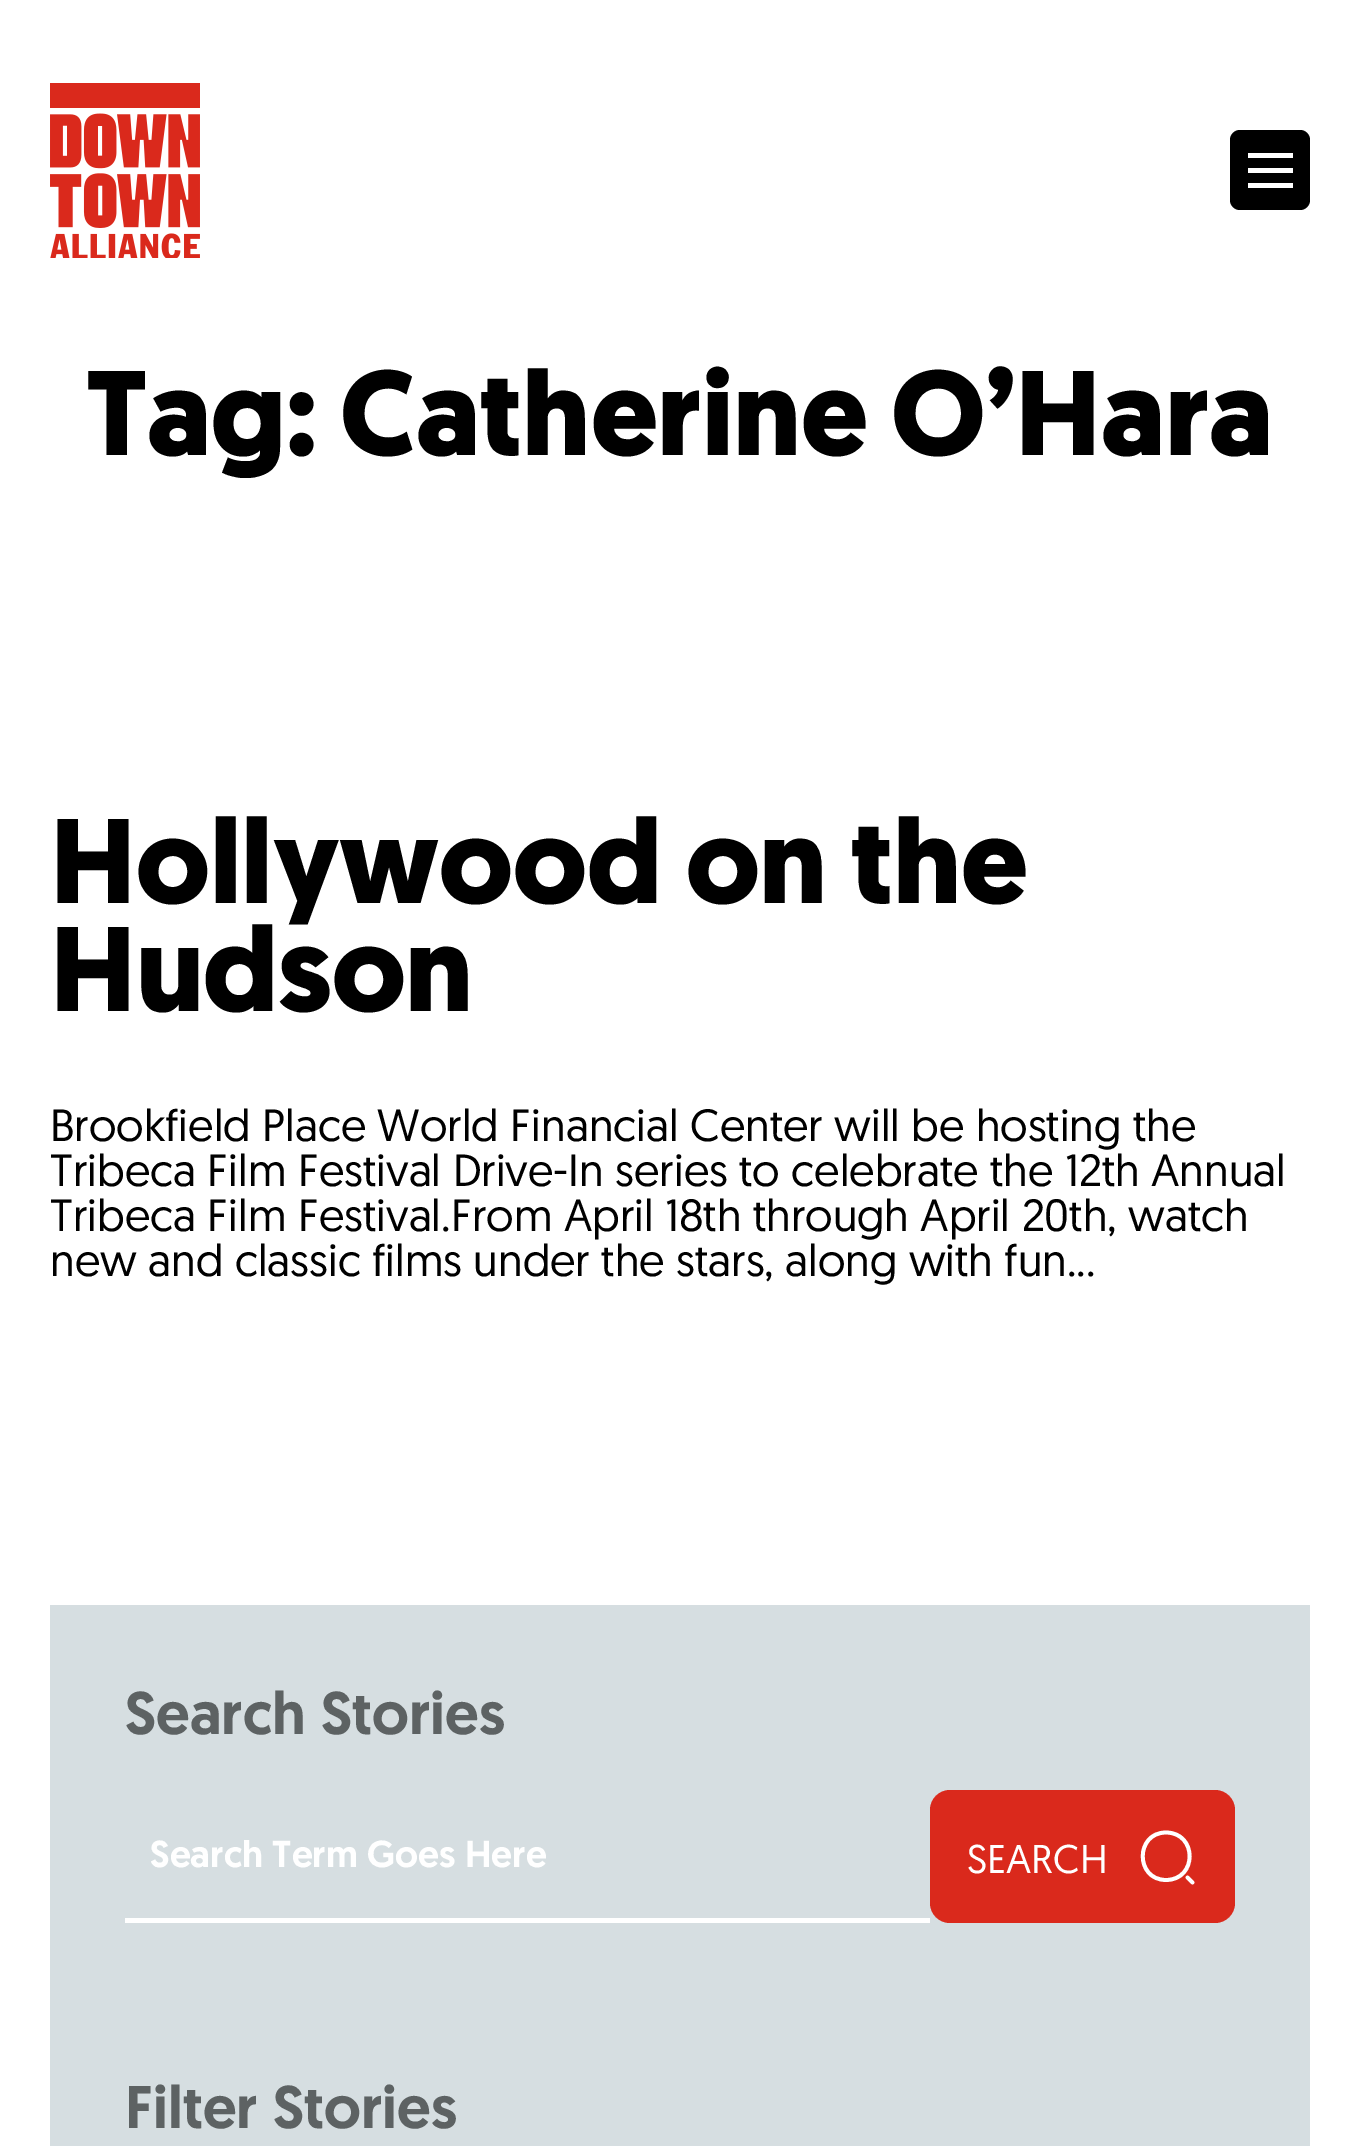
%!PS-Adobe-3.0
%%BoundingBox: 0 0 1360 2146
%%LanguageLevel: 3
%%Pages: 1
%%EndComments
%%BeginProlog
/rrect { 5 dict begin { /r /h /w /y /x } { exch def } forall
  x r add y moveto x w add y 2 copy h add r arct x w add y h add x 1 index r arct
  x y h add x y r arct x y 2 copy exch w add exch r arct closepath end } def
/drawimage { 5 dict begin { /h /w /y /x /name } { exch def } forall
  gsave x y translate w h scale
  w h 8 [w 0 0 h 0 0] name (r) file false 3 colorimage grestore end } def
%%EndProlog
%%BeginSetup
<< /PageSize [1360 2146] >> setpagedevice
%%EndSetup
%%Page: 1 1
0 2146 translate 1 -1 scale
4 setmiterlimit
1 setgray
0 0 1360 2146 rectfill
(images/1.raw) 50 83 150 175 drawimage
0 setgray
1230 130 80 80 10 rrect fill
1 setgray
1248 153 45 5 rectfill
1248 168 45 5 rectfill
1248 183 45 5 rectfill
0.839 0.871 0.882 setrgbcolor
50 1605 1260 541 rectfill
1 setgray
125 1918 805 5 rectfill
0.855 0.161 0.11 setrgbcolor
930 1790 305 133 20 rrect fill
1 setgray
3.8 setlinewidth
1 setlinecap
1 setlinejoin
newpath 1166 1880 moveto 1197.5 1880 1197.5 1832.5 1166 1832.5 curveto 1135 1832.5 1135 1880 1166 1880 curveto closepath 1192.5 1882.5 moveto 1187.5 1877.5 lineto stroke
/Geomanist-Bold [120 0 0 -120 0 0] selectfont
0 setgray
86 455 moveto (Tag: Catherine O’Hara) show
50 903 moveto (Hollywood on the) show
50 1011 moveto (Hudson) show
/Geomanist-Regular [45 0 0 -45 0 0] selectfont
50 1141 moveto (Brookfield Place World Financial Center will be hosting the) show
50 1186 moveto (Tribeca Film Festival Drive-In series to celebrate the 12th Annual) show
50 1231 moveto (Tribeca Film Festival.From April 18th through April 20th, watch) show
50 1276 moveto (new and classic films under the stars, along with fun...) show
/Geomanist-Medium [60 0 0 -60 0 0] selectfont
0.365 0.384 0.388 setrgbcolor
125 1734 moveto (Search Stories) show
/Geomanist-Medium [37.5 0 0 -37.5 0 0] selectfont
1 setgray
150 1867 moveto (Search Term Goes Here) show
/Geomanist-Regular [40 0 0 -40 0 0] selectfont
967 1873 moveto (SEARCH) show
/Geomanist-Medium [60 0 0 -60 0 0] selectfont
0.365 0.384 0.388 setrgbcolor
125 2128 moveto (Filter Stories) show
showpage
%%EOF
